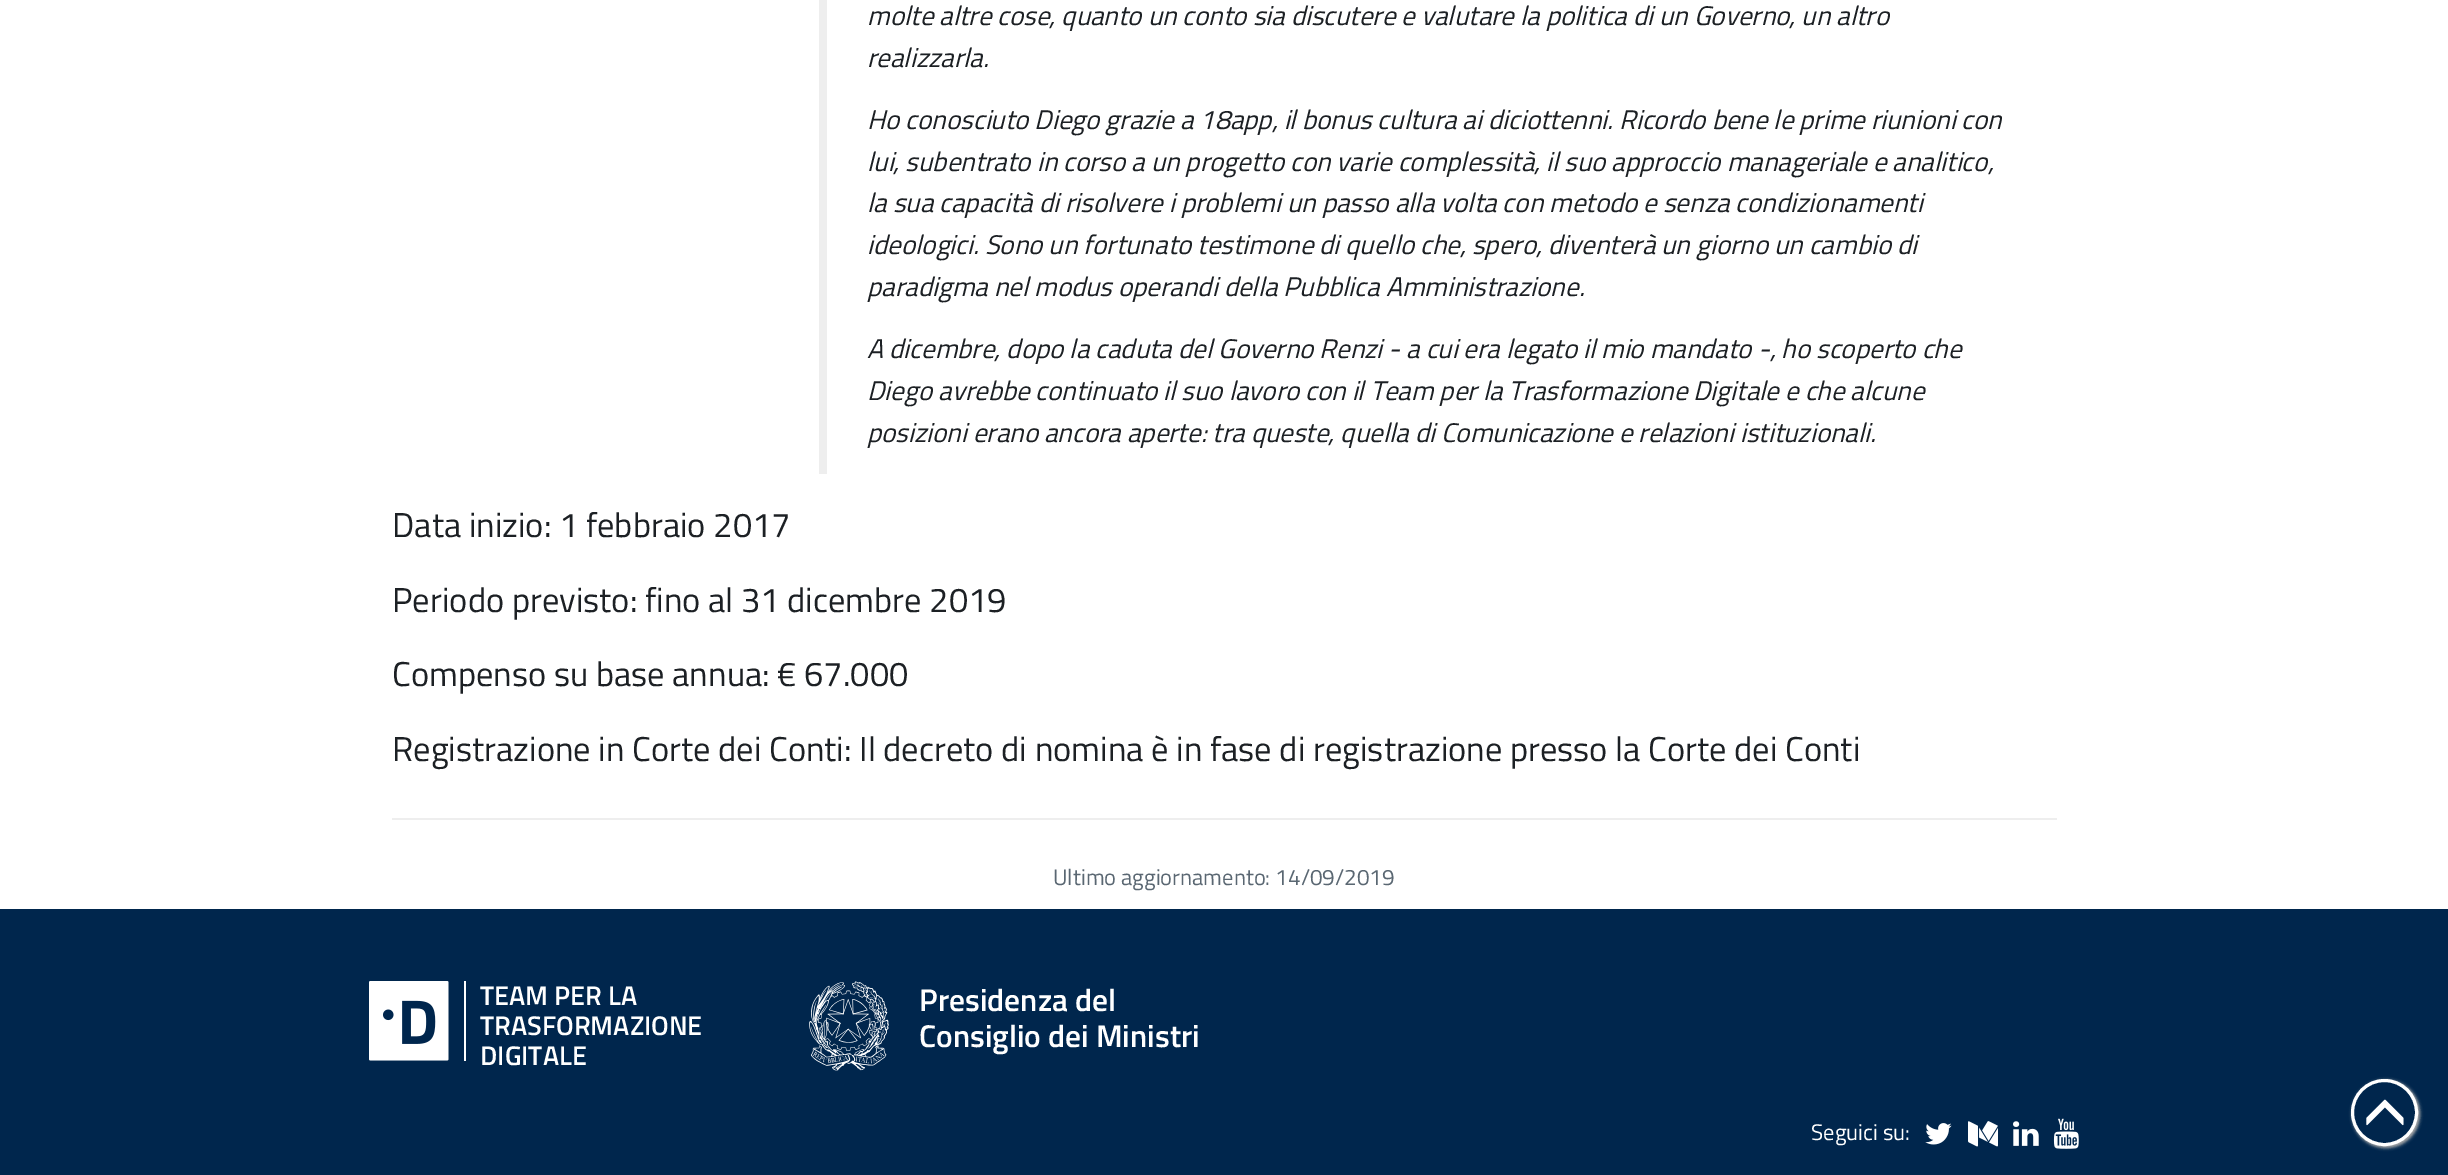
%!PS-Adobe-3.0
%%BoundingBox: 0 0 2448 1175
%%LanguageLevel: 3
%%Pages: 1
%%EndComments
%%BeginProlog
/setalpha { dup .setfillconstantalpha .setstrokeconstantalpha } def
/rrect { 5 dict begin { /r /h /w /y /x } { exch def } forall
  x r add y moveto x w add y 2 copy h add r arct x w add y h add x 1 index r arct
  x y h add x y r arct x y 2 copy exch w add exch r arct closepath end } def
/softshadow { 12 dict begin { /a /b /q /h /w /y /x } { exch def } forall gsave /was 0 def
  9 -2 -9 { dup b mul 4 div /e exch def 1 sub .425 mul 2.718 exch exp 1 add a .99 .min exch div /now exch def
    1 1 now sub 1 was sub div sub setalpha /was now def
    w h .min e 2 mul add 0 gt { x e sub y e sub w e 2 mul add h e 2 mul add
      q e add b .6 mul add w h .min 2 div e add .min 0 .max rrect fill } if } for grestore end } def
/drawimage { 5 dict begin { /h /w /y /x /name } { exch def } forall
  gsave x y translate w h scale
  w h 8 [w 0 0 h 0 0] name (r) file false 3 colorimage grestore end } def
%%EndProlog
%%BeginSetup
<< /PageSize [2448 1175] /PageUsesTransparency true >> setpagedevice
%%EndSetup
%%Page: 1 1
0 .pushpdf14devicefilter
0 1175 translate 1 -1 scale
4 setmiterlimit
1 setgray
0 0 2448 1175 rectfill
0.933 setgray
819 0 8 474 rectfill
392 818 1665 2 rectfill
0 0.149 0.302 setrgbcolor
0 909 2448 266 rectfill
1 setgray
464 981 2 80 rectfill
(images/1.raw) 369 981 80 80 drawimage
(images/2.raw) 809 981 80 90 drawimage
(images/3.raw) 1925 1123 27 22 drawimage
(images/4.raw) 1968 1121 30 26 drawimage
(images/5.raw) 2013 1121 26 25 drawimage
(images/6.raw) 2053 1118 26 31 drawimage
0.667 setgray
2352 1080 68 68 34 1.5 1 softshadow
0 0.149 0.302 setrgbcolor
newpath 2384.5 1112.5 32 0 360 arc closepath gsave fill grestore
1 setgray
3 setlinewidth
stroke
(images/7.raw) 2366 1099 38 27 drawimage
/TitilliumWeb-Italic [27 0 0 -27 0 0] selectfont
0.11 0.125 0.141 setrgbcolor
867 25 moveto (molte altre cose, quanto un conto sia discutere e valutare la politica di un Governo, un altro) show
867 67 moveto (realizzarla.) show
867 129 moveto (Ho conosciuto Diego grazie a 18app, il bonus cultura ai diciottenni. Ricordo bene le prime riunioni con) show
867 171 moveto (lui, subentrato in corso a un progetto con varie complessità, il suo approccio manageriale e analitico,) show
867 212 moveto (la sua capacità di risolvere i problemi un passo alla volta con metodo e senza condizionamenti) show
867 254 moveto (ideologici. Sono un fortunato testimone di quello che, spero, diventerà un giorno un cambio di) show
867 296 moveto (paradigma nel modus operandi della Pubblica Amministrazione.) show
867 358 moveto (A dicembre, dopo la caduta del Governo Renzi - a cui era legato il mio mandato -, ho scoperto che) show
867 400 moveto (Diego avrebbe continuato il suo lavoro con il Team per la Trasformazione Digitale e che alcune) show
867 442 moveto (posizioni erano ancora aperte: tra queste, quella di Comunicazione e relazioni istituzionali.) show
/TitilliumWeb-Regular [34.5 0 0 -34.5 0 0] selectfont
392 537 moveto (Data inizio: 1 febbraio 2017) show
392 612 moveto (Periodo previsto: fino al 31 dicembre 2019) show
392 686 moveto (Compenso su base annua: € 67.000) show
392 761 moveto (Registrazione in Corte dei Conti: Il decreto di nomina è in fase di registrazione presso la Corte dei Conti) show
/TitilliumWeb-Regular [22.5 0 0 -22.5 0 0] selectfont
0.353 0.404 0.447 setrgbcolor
1053 885 moveto (Ultimo aggiornamento: 14/09/2019) show
/TitilliumWeb-SemiBold [27 0 0 -27 0 0] selectfont
1 setgray
480 1005 moveto (TEAM PER LA) show
480 1035 moveto (TRASFORMAZIONE) show
480 1065 moveto (DIGITALE) show
/TitilliumWeb-SemiBold [31.5 0 0 -31.5 0 0] selectfont
919 1011 moveto (Presidenza del) show
919 1047 moveto (Consiglio dei Ministri) show
/TitilliumWeb-Regular [22.5 0 0 -22.5 0 0] selectfont
1811 1140 moveto (Seguici su:) show
.poppdf14devicefilter showpage
%%EOF
